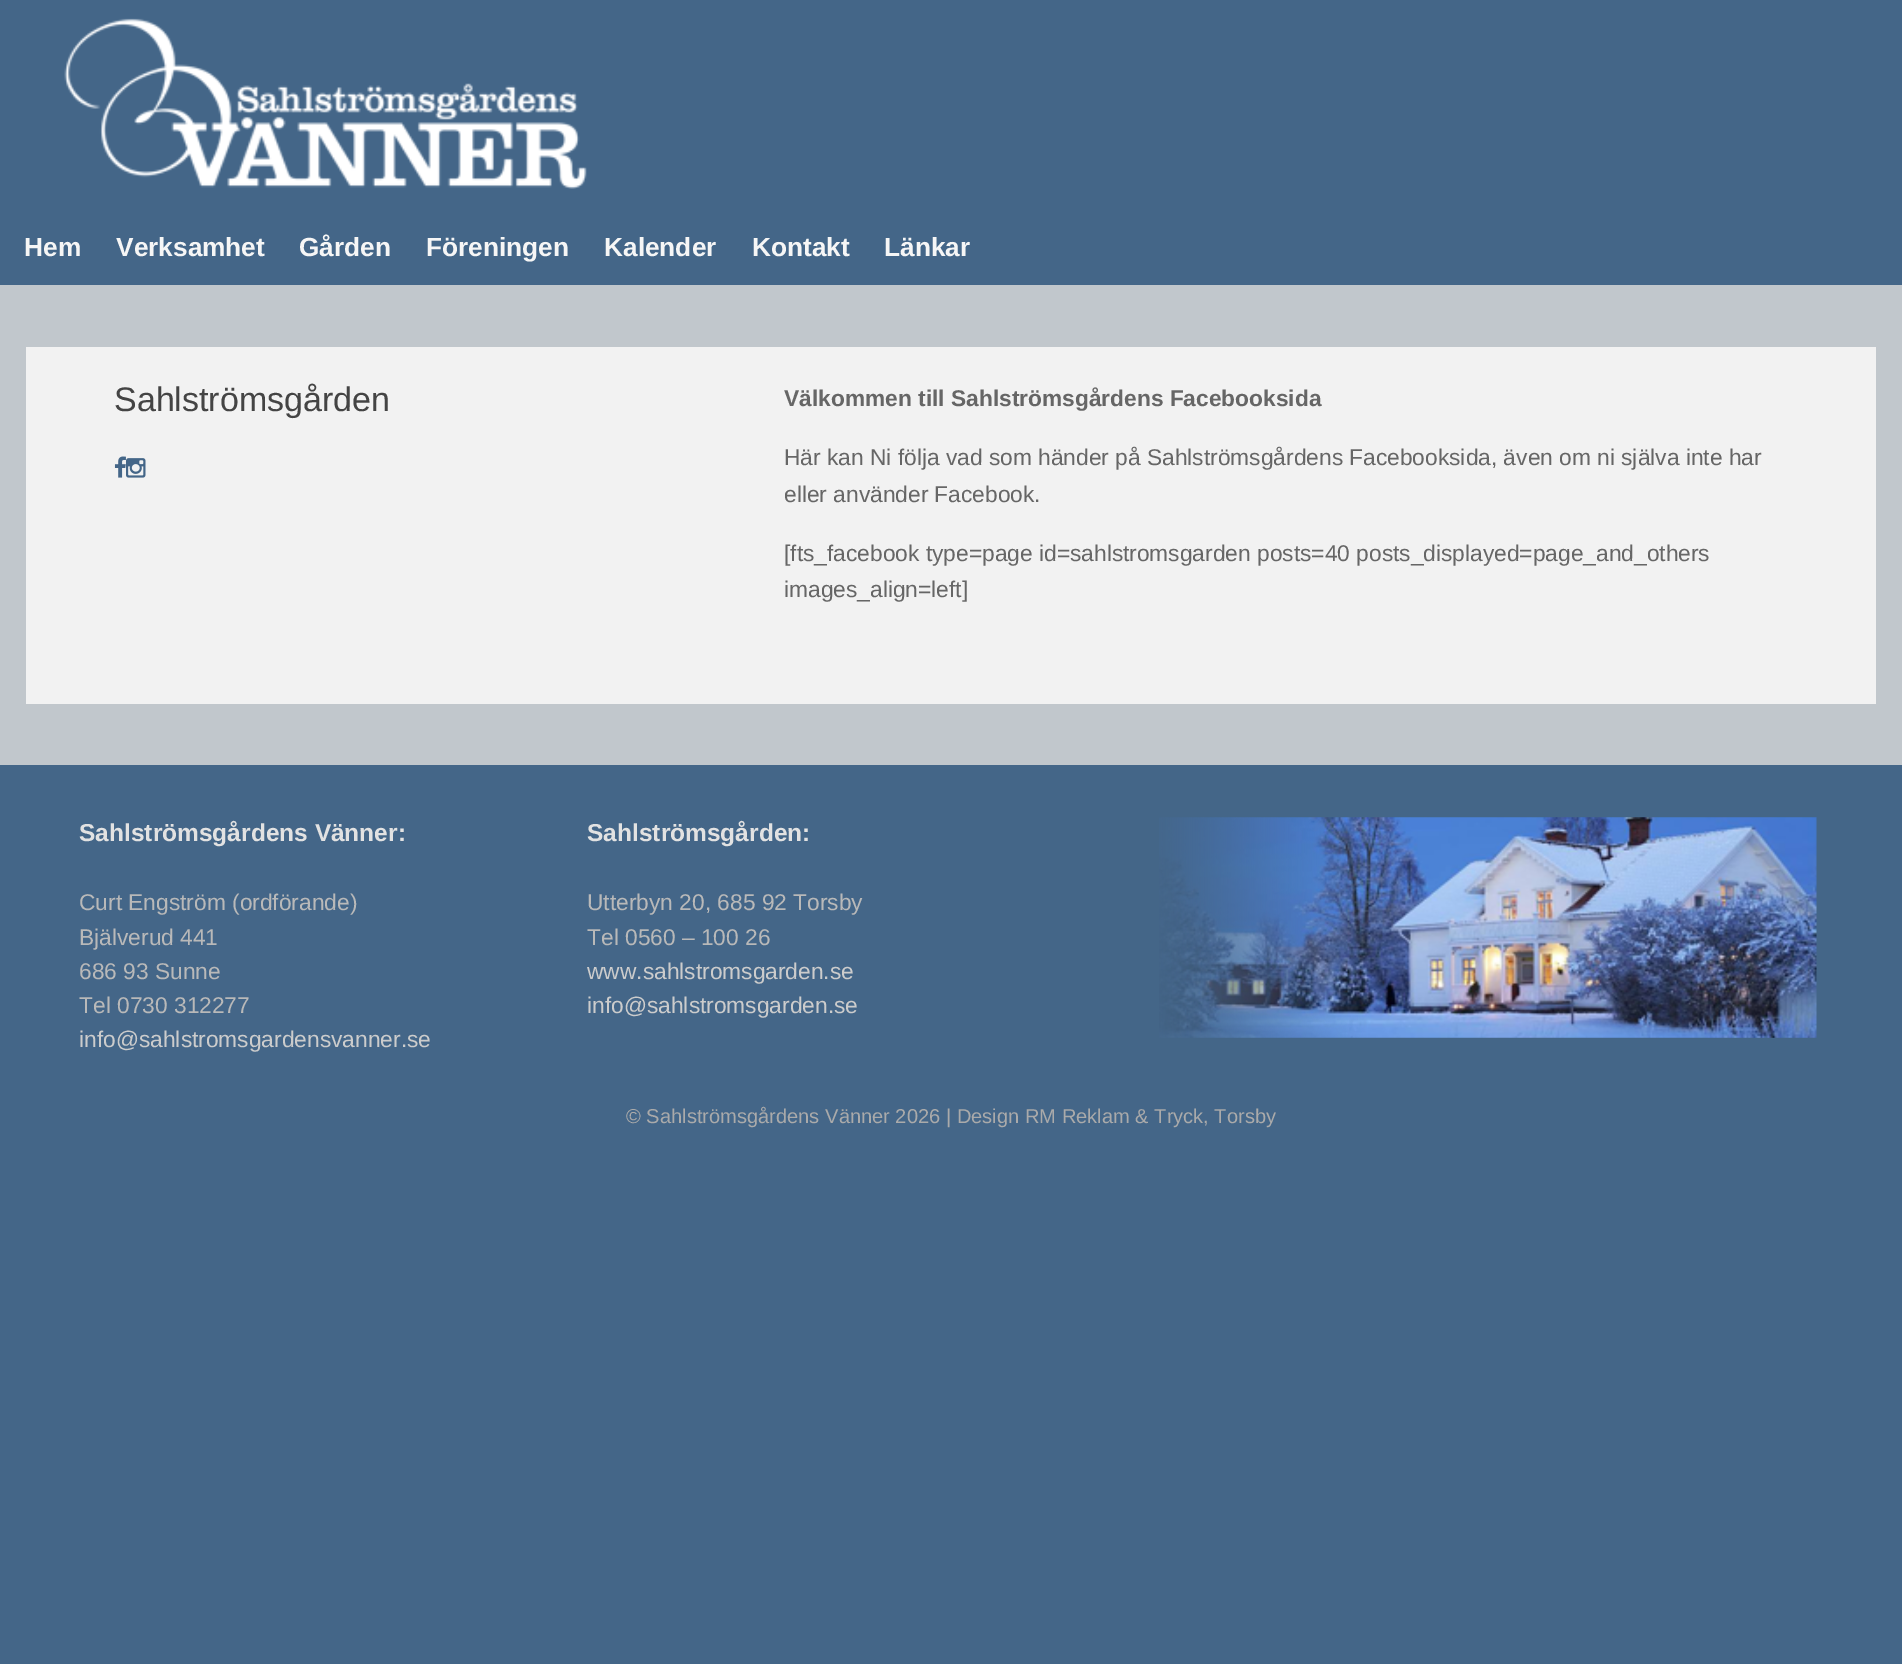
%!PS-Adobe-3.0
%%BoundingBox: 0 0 1902 1664
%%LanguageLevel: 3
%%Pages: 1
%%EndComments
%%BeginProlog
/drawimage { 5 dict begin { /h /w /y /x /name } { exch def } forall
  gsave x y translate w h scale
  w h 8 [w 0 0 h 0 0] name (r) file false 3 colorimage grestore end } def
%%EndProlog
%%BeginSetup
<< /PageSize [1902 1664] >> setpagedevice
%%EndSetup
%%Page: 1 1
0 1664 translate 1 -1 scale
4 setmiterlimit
0.267 0.4 0.533 setrgbcolor
0 0 1902 1664 rectfill
(images/1.raw) 64 18 523 171 drawimage
0.757 0.78 0.8 setrgbcolor
0 285 1902 480 rectfill
0.949 setgray
26 347 1850 357 rectfill
(images/2.raw) 114 456 12 22 drawimage
(images/3.raw) 126 458 20 20 drawimage
(images/4.raw) 1159 817 658 221 drawimage
/LiberationSans-Bold [26.25 0 0 -26.25 0 0] selectfont
0.965 setgray
24 256 moveto (Hem) show
116 256 moveto (Verksamhet) show
299 256 moveto (Gården) show
426 256 moveto (Föreningen) show
604 256 moveto (Kalender) show
752 256 moveto (Kontakt) show
884 256 moveto (Länkar) show
/LiberationSans-Regular [34 0 0 -34 0 0] selectfont
0.267 setgray
114 411 moveto (Sahlströmsgården) show
/LiberationSans-Bold [22.75 0 0 -22.75 0 0] selectfont
0.4 setgray
784 406 moveto (Välkommen till Sahlströmsgårdens Facebooksida) show
/LiberationSans-Regular [22.75 0 0 -22.75 0 0] selectfont
784 465 moveto (Här kan Ni följa vad som händer på Sahlströmsgårdens Facebooksida, även om ni själva inte har) show
784 502 moveto (eller använder Facebook.) show
784 561 moveto ([fts_facebook type=page id=sahlstromsgarden posts=40 posts_displayed=page_and_others) show
784 597 moveto (images_align=left]) show
/LiberationSans-Bold [24.5 0 0 -24.5 0 0] selectfont
0.886 setgray
79 841 moveto (Sahlströmsgårdens Vänner:) show
/LiberationSans-Regular [22.75 0 0 -22.75 0 0] selectfont
0.725 setgray
79 910 moveto (Curt Engström \(ordförande\)) show
79 945 moveto (Bjälverud 441) show
79 979 moveto (686 93 Sunne) show
79 1013 moveto (Tel 0730 312277) show
0.8 setgray
79 1047 moveto (info@sahlstromsgardensvanner.se) show
/LiberationSans-Bold [24.5 0 0 -24.5 0 0] selectfont
0.886 setgray
587 841 moveto (Sahlströmsgården:) show
/LiberationSans-Regular [22.75 0 0 -22.75 0 0] selectfont
0.725 setgray
587 910 moveto (Utterbyn 20, 685 92 Torsby) show
587 945 moveto (Tel 0560 – 100 26) show
0.8 setgray
587 979 moveto (www.sahlstromsgarden.se) show
587 1013 moveto (info@sahlstromsgarden.se) show
/LiberationSans-Regular [20.1 0 0 -20.1 0 0] selectfont
0.667 setgray
626 1123 moveto (© Sahlströmsgårdens Vänner 2026 | Design RM Reklam & Tryck, Torsby) show
showpage
%%EOF
